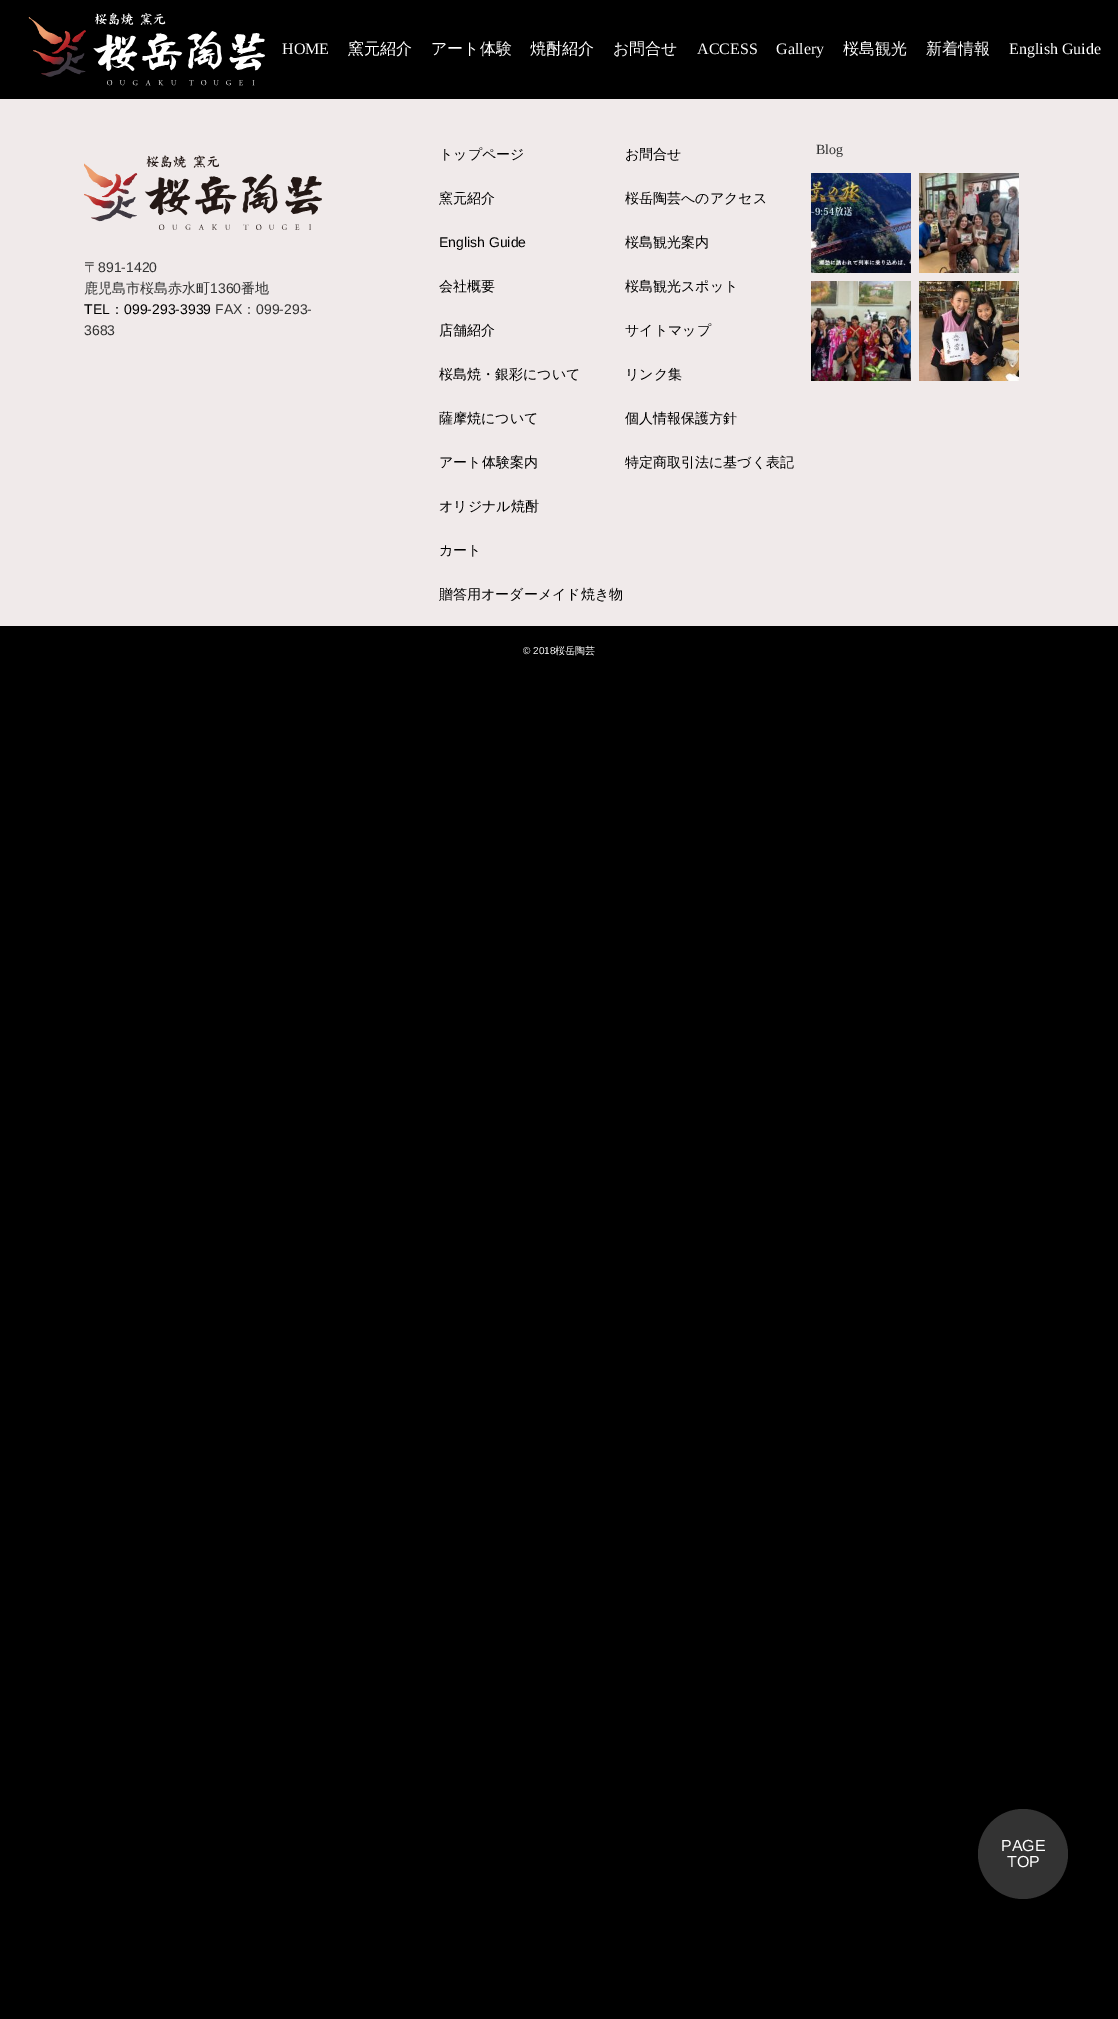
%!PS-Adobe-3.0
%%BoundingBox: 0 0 1118 2019
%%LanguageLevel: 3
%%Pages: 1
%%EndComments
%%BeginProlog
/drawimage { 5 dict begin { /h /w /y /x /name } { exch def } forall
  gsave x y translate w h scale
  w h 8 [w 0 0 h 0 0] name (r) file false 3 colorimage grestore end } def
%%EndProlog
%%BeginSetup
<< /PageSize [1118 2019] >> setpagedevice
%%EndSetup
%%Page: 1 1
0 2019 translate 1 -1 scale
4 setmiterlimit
0 setgray
0 0 1118 2019 rectfill
(images/1.raw) 28 13 237 73 drawimage
0.941 0.918 0.918 setrgbcolor
0 99 1118 527 rectfill
(images/2.raw) 84 155 238 75 drawimage
(images/3.raw) 811 173 100 100 drawimage
(images/4.raw) 919 173 100 100 drawimage
(images/5.raw) 811 281 100 100 drawimage
(images/6.raw) 919 281 100 100 drawimage
0.2 setgray
newpath 1023 1854 45 0 360 arc closepath fill
/LiberationSerif-Regular [16 0 0 -16 0 0] selectfont
1 setgray
282 54 moveto (HOME) show
/WenQuanYiZenHei-Medium [16 0 0 -16 0 0] selectfont
348 54 moveto (窯元紹介) show
431 54 moveto (アート体験) show
530 54 moveto (焼酎紹介) show
613 54 moveto (お問合せ) show
/LiberationSerif-Regular [16 0 0 -16 0 0] selectfont
697 54 moveto (ACCESS) show
776 54 moveto (Gallery) show
/WenQuanYiZenHei-Medium [16 0 0 -16 0 0] selectfont
843 54 moveto (桜島観光) show
926 54 moveto (新着情報) show
/LiberationSerif-Regular [16 0 0 -16 0 0] selectfont
1009 54 moveto (English Guide) show
/WenQuanYiZenHei-Medium [14 0 0 -14 0 0] selectfont
0.2 setgray
84 272 moveto (〒) show
/LiberationSans-Regular [14 0 0 -14 0 0] selectfont
98 272 moveto (891-1420) show
/WenQuanYiZenHei-Medium [14 0 0 -14 0 0] selectfont
84 293 moveto (鹿児島市桜島赤水町) show
/LiberationSans-Regular [14 0 0 -14 0 0] selectfont
210 293 moveto (1360) show
/WenQuanYiZenHei-Medium [14 0 0 -14 0 0] selectfont
241 293 moveto (番地) show
/LiberationSans-Regular [14 0 0 -14 0 0] selectfont
0 setgray
84 314 moveto (TEL) show
/WenQuanYiZenHei-Medium [14 0 0 -14 0 0] selectfont
110 314 moveto (：) show
/LiberationSans-Regular [14 0 0 -14 0 0] selectfont
124 314 moveto (099-293-3939) show
0.2 setgray
215 314 moveto (FAX) show
/WenQuanYiZenHei-Medium [14 0 0 -14 0 0] selectfont
242 314 moveto (：) show
/LiberationSans-Regular [14 0 0 -14 0 0] selectfont
256 314 moveto (099-293-) show
84 335 moveto (3683) show
/WenQuanYiZenHei-Medium [14 0 0 -14 0 0] selectfont
0 setgray
439 159 moveto (トップページ) show
439 203 moveto (窯元紹介) show
/LiberationSans-Regular [14 0 0 -14 0 0] selectfont
439 247 moveto (English Guide) show
/WenQuanYiZenHei-Medium [14 0 0 -14 0 0] selectfont
439 291 moveto (会社概要) show
439 335 moveto (店舗紹介) show
439 379 moveto (桜島焼・銀彩について) show
439 423 moveto (薩摩焼について) show
439 467 moveto (アート体験案内) show
439 511 moveto (オリジナル焼酎) show
439 555 moveto (カート) show
439 599 moveto (贈答用オーダーメイド焼き物) show
625 159 moveto (お問合せ) show
625 203 moveto (桜岳陶芸へのアクセス) show
625 247 moveto (桜島観光案内) show
625 291 moveto (桜島観光スポット) show
625 335 moveto (サイトマップ) show
625 379 moveto (リンク集) show
625 423 moveto (個人情報保護方針) show
625 467 moveto (特定商取引法に基づく表記) show
/LiberationSerif-Regular [14 0 0 -14 0 0] selectfont
0.2 setgray
816 154 moveto (Blog) show
/LiberationSans-Regular [10 0 0 -10 0 0] selectfont
1 setgray
523 654 moveto (© 2018) show
/WenQuanYiZenHei-Medium [10 0 0 -10 0 0] selectfont
555 654 moveto (桜岳陶芸) show
/LiberationSans-Regular [16 0 0 -16 0 0] selectfont
1001 1851 moveto (PAGE) show
1007 1867 moveto (TOP) show
showpage
%%EOF
